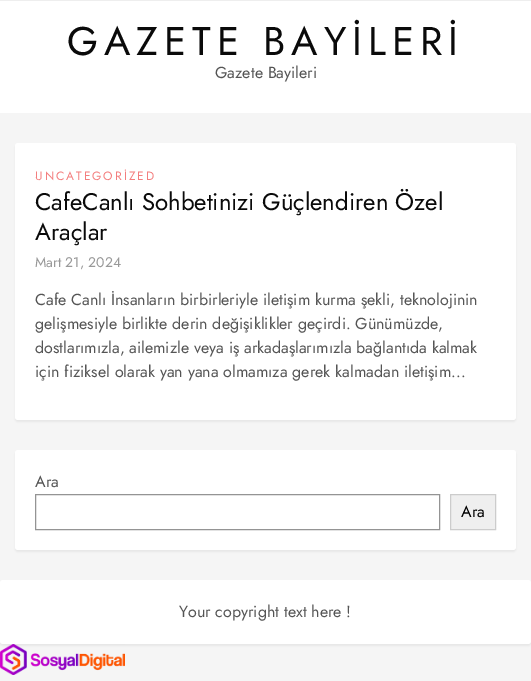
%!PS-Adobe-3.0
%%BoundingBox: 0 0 531 681
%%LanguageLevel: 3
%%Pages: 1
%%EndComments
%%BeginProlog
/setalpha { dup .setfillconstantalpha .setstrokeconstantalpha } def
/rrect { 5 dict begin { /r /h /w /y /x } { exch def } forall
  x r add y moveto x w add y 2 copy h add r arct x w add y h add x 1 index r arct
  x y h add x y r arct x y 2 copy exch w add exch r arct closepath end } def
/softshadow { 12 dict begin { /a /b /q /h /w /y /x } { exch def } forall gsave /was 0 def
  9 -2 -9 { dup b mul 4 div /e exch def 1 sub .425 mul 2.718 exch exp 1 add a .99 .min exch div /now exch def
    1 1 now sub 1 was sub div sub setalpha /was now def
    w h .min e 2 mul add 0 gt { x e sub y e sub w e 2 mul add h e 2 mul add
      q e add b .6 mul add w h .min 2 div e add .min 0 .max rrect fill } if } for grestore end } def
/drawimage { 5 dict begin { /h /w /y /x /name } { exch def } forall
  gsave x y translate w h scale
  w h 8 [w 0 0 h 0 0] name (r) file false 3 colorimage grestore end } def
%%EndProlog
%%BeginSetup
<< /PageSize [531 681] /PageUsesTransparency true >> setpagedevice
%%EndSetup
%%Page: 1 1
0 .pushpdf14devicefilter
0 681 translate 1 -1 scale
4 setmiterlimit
0.961 setgray
0 0 531 681 rectfill
1 setgray
0 1 531 112 rectfill
0.933 setgray
0 0 531 1 rectfill
0 setgray
15 145 501 277 3 1 0.06 softshadow
1 setgray
15 143 501 277 3 rrect fill
0 setgray
15 452 501 100 3 1 0.06 softshadow
1 setgray
15 450 501 100 3 rrect fill
0.58 setgray
35.5 494.5 404 35 rectstroke
0.937 setgray
newpath 450.5 494.5 moveto 495.5 494.5 lineto 495.5 529.5 lineto 450.5 529.5 lineto closepath gsave fill grestore
0.8 setgray
stroke
0 setgray
0 582 531 64 3 1 0.06 softshadow
1 setgray
0 580 531 64 3 rrect fill
(images/1.raw) 0 644 125 31 drawimage
/Jost-Regular [40 0 0 -40 0 0] selectfont
0.039 setgray
67 55 moveto 6 0 (GAZETE BAYİLERİ) ashow
/Jost-Regular [16 0 0 -16 0 0] selectfont
0.333 setgray
215 78 moveto (Gazete Bayileri) show
/Jost-Regular [12 0 0 -12 0 0] selectfont
0.953 0.494 0.494 setrgbcolor
35 180 moveto 2 0 (UNCATEGORİZED) ashow
/Jost-Regular [24 0 0 -24 0 0] selectfont
0.039 setgray
35 210 moveto (CafeCanlı Sohbetinizi Güçlendiren Özel) show
35 240 moveto (Araçlar) show
/Jost-Regular [14 0 0 -14 0 0] selectfont
0.6 setgray
35 267 moveto (Mart 21, 2024) show
/Jost-Regular [16 0 0 -16 0 0] selectfont
0.333 setgray
35 305 moveto (Cafe Canlı İnsanların birbirleriyle iletişim kurma şekli, teknolojinin) show
35 329 moveto (gelişmesiyle birlikte derin değişiklikler geçirdi. Günümüzde,) show
35 353 moveto (dostlarımızla, ailemizle veya iş arkadaşlarımızla bağlantıda kalmak) show
35 377 moveto (için fiziksel olarak yan yana olmamıza gerek kalmadan iletişim...) show
35 487 moveto (Ara) show
0 setgray
461 517 moveto (Ara) show
0.333 setgray
179 617 moveto (Your copyright text here !) show
.poppdf14devicefilter showpage
%%EOF
